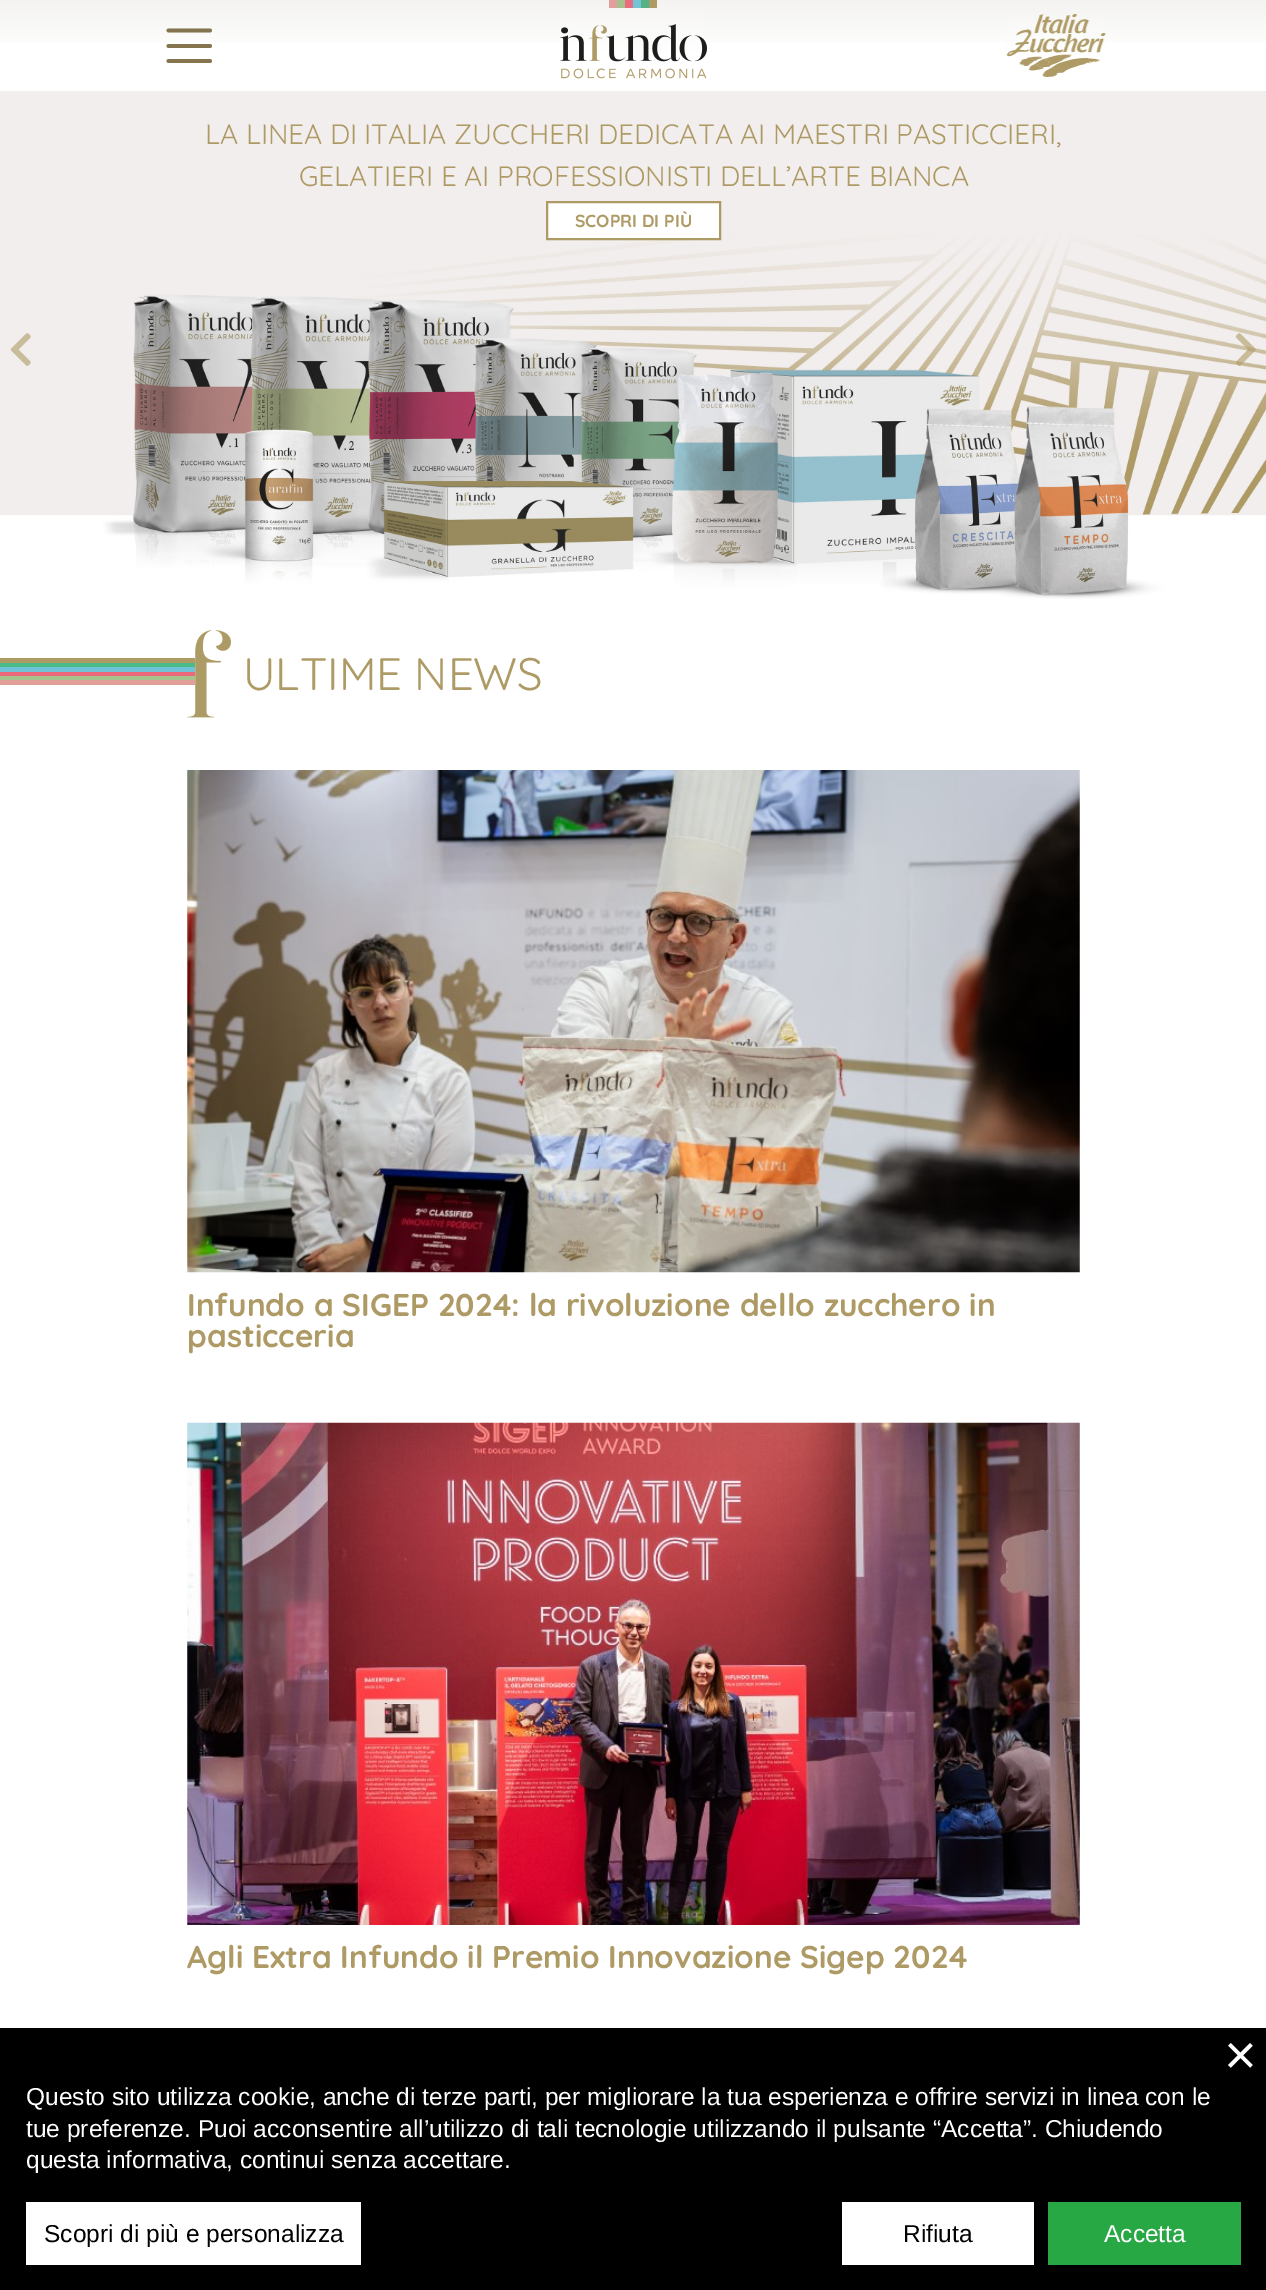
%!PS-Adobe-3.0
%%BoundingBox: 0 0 1266 2290
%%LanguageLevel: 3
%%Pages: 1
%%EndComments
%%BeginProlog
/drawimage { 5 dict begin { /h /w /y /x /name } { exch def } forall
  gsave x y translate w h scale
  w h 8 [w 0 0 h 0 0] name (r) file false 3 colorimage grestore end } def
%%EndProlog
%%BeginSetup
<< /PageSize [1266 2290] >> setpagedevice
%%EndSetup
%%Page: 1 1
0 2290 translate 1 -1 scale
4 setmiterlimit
1 setgray
0 0 1266 2290 rectfill
gsave newpath 0 0 moveto 1266 0 lineto 1266 43 lineto 0 43 lineto closepath clip newpath
<< /ShadingType 2 /ColorSpace /DeviceRGB /Coords [634 0 634 91] /Extend [true true] /Function << /FunctionType 3 /Domain [0 1] /Functions [<< /FunctionType 2 /Domain [0 1] /C0 [0.957 0.953 0.945] /C1 [1 1 1] /N 1 >> << /FunctionType 2 /Domain [0 1] /C0 [1 1 1] /C1 [1 1 1] /N 1 >>] /Bounds [0.58] /Encode [0 1 0 1] >> >> shfill grestore
0.518 0.459 0.306 setrgbcolor
3.8 setlinewidth
1 setlinecap
newpath 168.5 30.5 moveto 210 30.5 lineto 168.5 46 moveto 210 46 lineto 168.5 61 moveto 210 61 lineto stroke
(images/1.raw) 560 0 147 79 drawimage
(images/2.raw) 1006 14 100 63 drawimage
(images/3.raw) 0 91 1266 508 drawimage
1 setgray
newpath 547 202 moveto 720 202 lineto 720 239 lineto 547 239 lineto closepath gsave fill grestore
0.682 0.604 0.392 setrgbcolor
2 setlinewidth
0 setlinecap
stroke
(images/4.raw) 10 333 21 33 drawimage
(images/5.raw) 1235 333 21 33 drawimage
0.678 0.608 0.396 setrgbcolor
0 658 187 5 rectfill
0.282 0.733 0.533 setrgbcolor
0 663 187 4 rectfill
0.435 0.761 0.843 setrgbcolor
0 667 187 5 rectfill
0.925 0.412 0.486 setrgbcolor
0 672 187 4 rectfill
0.655 0.765 0.553 setrgbcolor
0 676 187 4 rectfill
0.882 0.624 0.604 setrgbcolor
0 680 187 5 rectfill
(images/6.raw) 187 630 44 88 drawimage
(images/7.raw) 187 770 893 503 drawimage
(images/8.raw) 187 1422 893 503 drawimage
0 setgray
0 2028 1266 262 rectfill
1 setgray
26 2202 335 63 rectfill
842 2202 192 63 rectfill
0.157 0.655 0.271 setrgbcolor
1048 2202 193 63 rectfill
/Quicksand-Regular [28 0 0 -28 0 0] selectfont
0.682 0.604 0.392 setrgbcolor
205 144 moveto (LA LINEA DI ITALIA ZUCCHERI DEDICATA AI MAESTRI PASTICCIERI,) show
299 186 moveto (GELATIERI E AI PROFESSIONISTI DELL’ARTE BIANCA) show
/Quicksand-Bold [17.5 0 0 -17.5 0 0] selectfont
575 227 moveto (SCOPRI DI PIÙ) show
/Quicksand-Regular [45.5 0 0 -45.5 0 0] selectfont
243 690 moveto (ULTIME NEWS) show
/Quicksand-Bold [31.5 0 0 -31.5 0 0] selectfont
187 1316 moveto (Infundo a SIGEP 2024: la rivoluzione dello zucchero in) show
187 1347 moveto (pasticceria) show
187 1968 moveto (Agli Extra Infundo il Premio Innovazione Sigep 2024) show
/LiberationSans-Regular [56 0 0 -56 0 0] selectfont
1 setgray
1224 2074 moveto (×) show
/LiberationSans-Regular [24.5 0 0 -24.5 0 0] selectfont
26 2105 moveto (Questo sito utilizza cookie, anche di terze parti, per migliorare la tua esperienza e offrire servizi in linea con le) show
26 2137 moveto (tue preferenze. Puoi acconsentire all’utilizzo di tali tecnologie utilizzando il pulsante “Accetta”. Chiudendo) show
26 2168 moveto (questa informativa, continui senza accettare.) show
0 setgray
44 2242 moveto (Scopri di più e personalizza) show
903 2242 moveto (Rifiuta) show
1 setgray
1104 2242 moveto (Accetta) show
showpage
%%EOF
